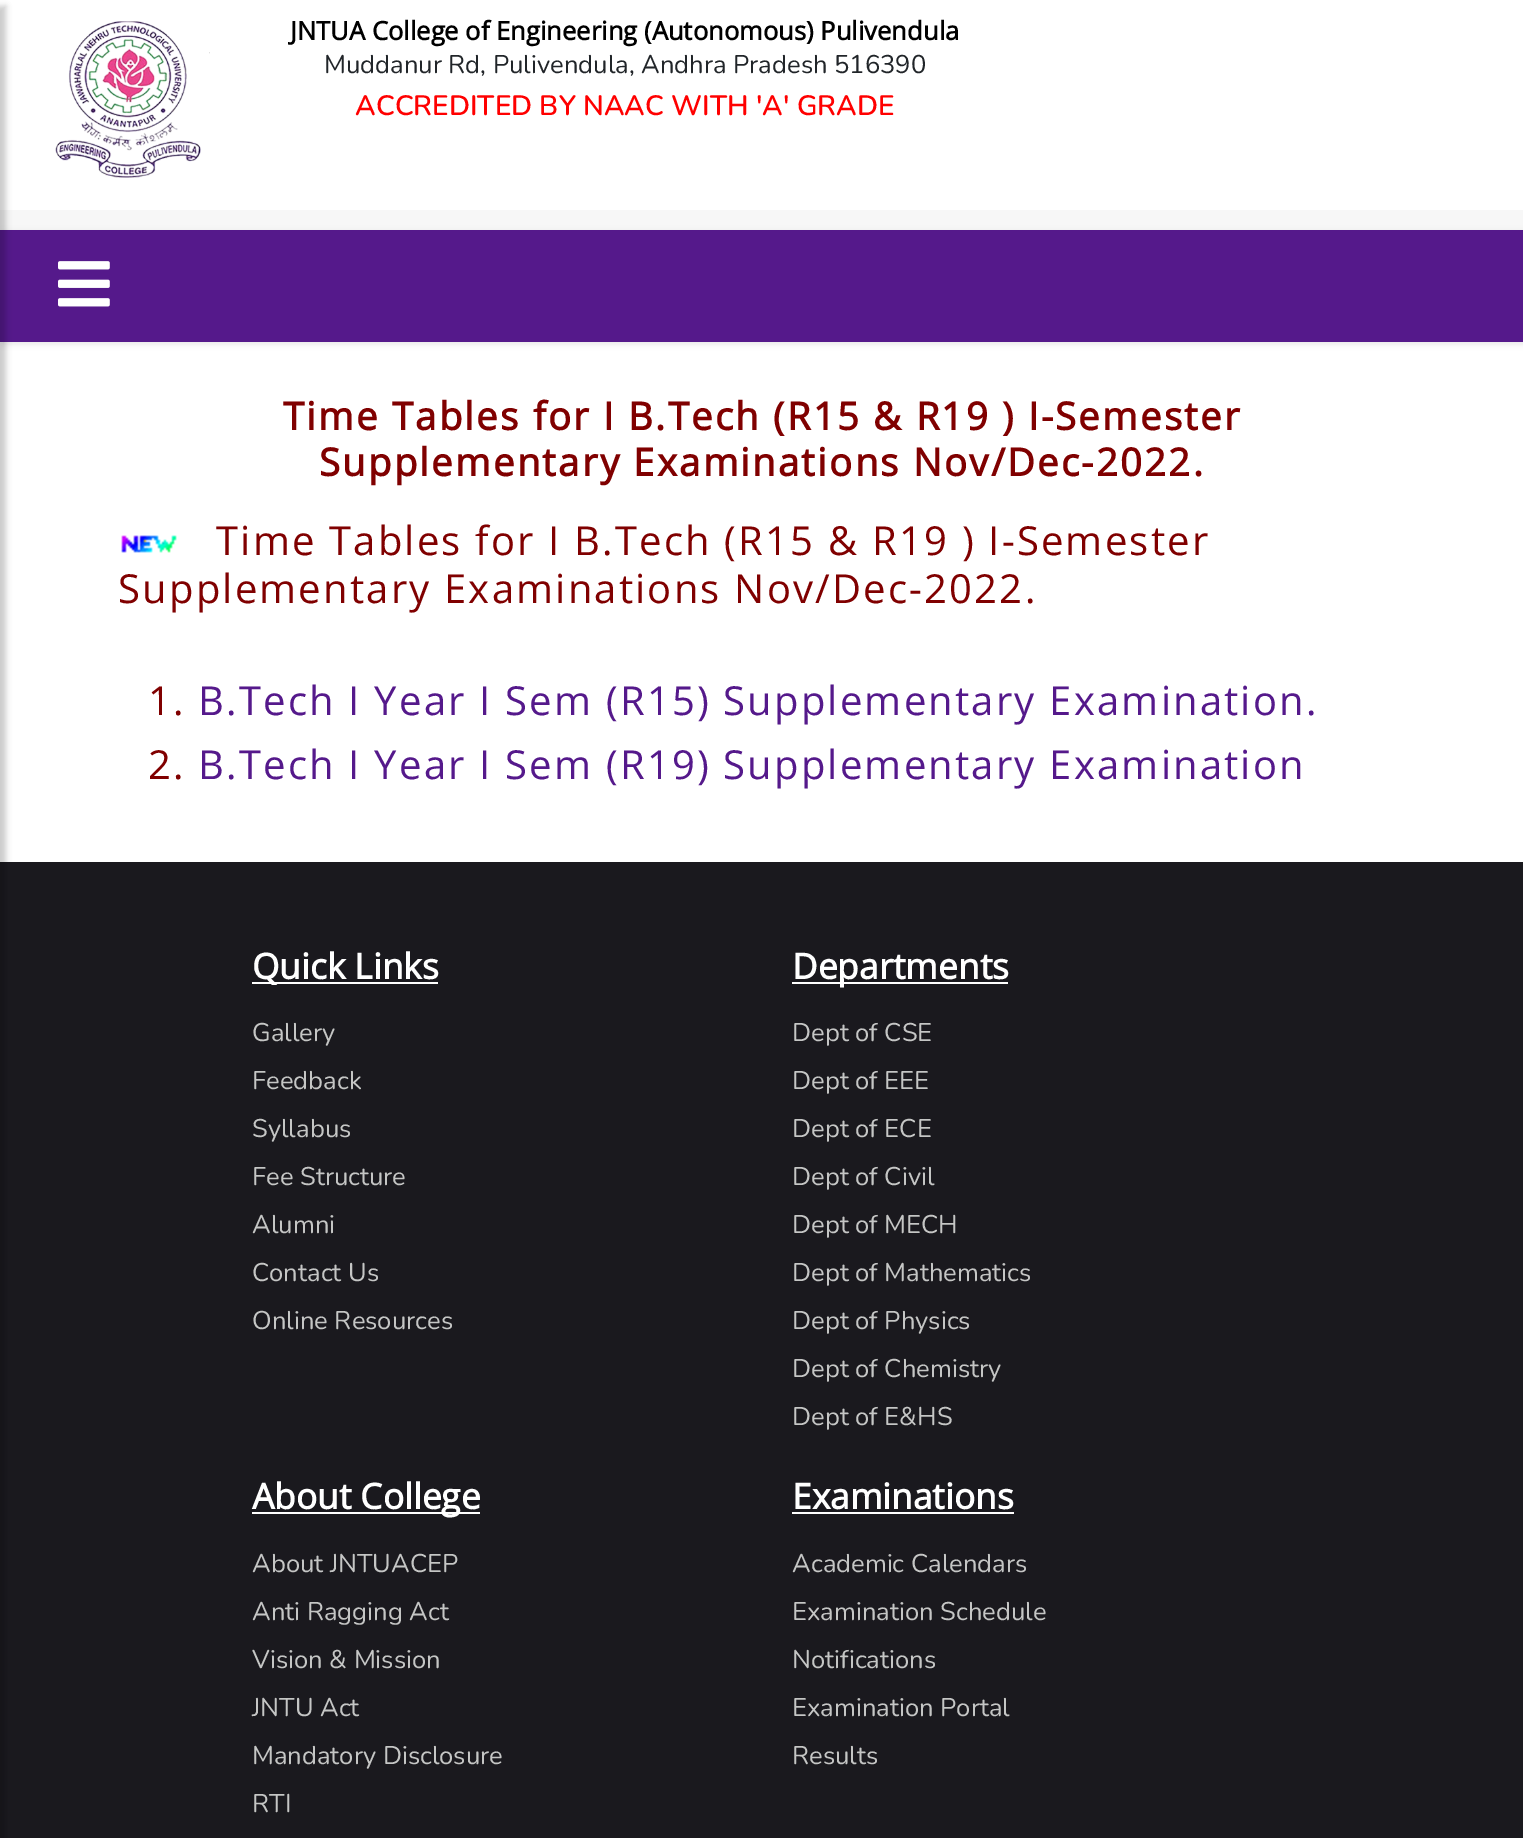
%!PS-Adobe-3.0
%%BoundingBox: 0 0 1523 1838
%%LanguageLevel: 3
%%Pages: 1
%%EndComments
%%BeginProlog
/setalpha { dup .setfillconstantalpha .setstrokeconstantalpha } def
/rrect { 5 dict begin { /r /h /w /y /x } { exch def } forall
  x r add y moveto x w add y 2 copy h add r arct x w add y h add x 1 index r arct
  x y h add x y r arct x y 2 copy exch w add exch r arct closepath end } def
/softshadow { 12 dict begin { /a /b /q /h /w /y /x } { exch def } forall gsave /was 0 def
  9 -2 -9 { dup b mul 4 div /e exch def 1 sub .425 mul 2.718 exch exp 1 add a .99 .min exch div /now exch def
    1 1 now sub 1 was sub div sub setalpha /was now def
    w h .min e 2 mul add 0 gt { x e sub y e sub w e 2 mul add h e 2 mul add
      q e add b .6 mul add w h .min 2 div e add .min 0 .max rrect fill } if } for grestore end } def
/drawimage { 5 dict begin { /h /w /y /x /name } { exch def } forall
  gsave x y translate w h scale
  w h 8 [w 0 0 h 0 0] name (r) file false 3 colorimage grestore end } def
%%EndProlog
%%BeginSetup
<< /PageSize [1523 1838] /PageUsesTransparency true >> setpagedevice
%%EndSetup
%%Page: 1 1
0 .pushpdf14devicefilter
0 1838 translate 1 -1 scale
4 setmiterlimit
0.969 setgray
0 0 1523 1838 rectfill
1 setgray
0 0 1523 210 rectfill
0 342 1523 520 rectfill
0 setgray
2 232 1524 112 0 3 0.1 softshadow
0.333 0.098 0.545 setrgbcolor
0 230 1523 112 rectfill
0.102 0.098 0.118 setrgbcolor
0 862 1523 976 rectfill
0 setgray
-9 6 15 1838 0 3 0.2 softshadow
(images/1.raw) 55 21 155 157 drawimage
(images/2.raw) 58 261 52 46 drawimage
(images/3.raw) 121 535 56 18 drawimage
1 setgray
252 982 186 2 rectfill
792 982 216 2 rectfill
252 1512 228 2 rectfill
792 1512 222 2 rectfill
/OpenSans-Bold [25.6 0 0 -25.6 0 0] selectfont
0 setgray
290 40 moveto (JNTUA College of Engineering \(Autonomous\) Pulivendula) show
/Nunito-Regular [25.6 0 0 -25.6 0 0] selectfont
0.129 0.145 0.161 setrgbcolor
324 73 moveto (Muddanur Rd, Pulivendula, Andhra Pradesh 516390) show
/Nunito-SemiBold [28 0 0 -28 0 0] selectfont
1 0 0 setrgbcolor
355 115 moveto (ACCREDITED BY NAAC WITH 'A' GRADE) show
/OpenSans-Bold [38.4 0 0 -38.4 0 0] selectfont
0.502 0 0 setrgbcolor
283 430 moveto 2.2 0 (Time Tables for I B.Tech \(R15 & R19 \) I-Semester) ashow
319 476 moveto 2.2 0 (Supplementary Examinations Nov/Dec-2022.) ashow
/OpenSans-Regular [40 0 0 -40 0 0] selectfont
216 555 moveto 2.2 0 (Time Tables for I B.Tech \(R15 & R19 \) I-Semester) ashow
118 603 moveto 2.2 0 (Supplementary Examinations Nov/Dec-2022.) ashow
148 715 moveto 2.2 0 (1.) ashow
0.333 0.098 0.545 setrgbcolor
198 715 moveto 2.2 0 (B.Tech I Year I Sem \(R15\) Supplementary Examination.) ashow
0.502 0 0 setrgbcolor
148 779 moveto 2.2 0 (2.) ashow
0.333 0.098 0.545 setrgbcolor
198 779 moveto 2.2 0 (B.Tech I Year I Sem \(R19\) Supplementary Examination) ashow
/OpenSans-Bold [35.25 0 0 -35.25 0 0] selectfont
1 setgray
252 979 moveto (Quick Links) show
/Nunito-Regular [25.6 0 0 -25.6 0 0] selectfont
0.773 0.776 0.773 setrgbcolor
252 1041 moveto (Gallery) show
252 1089 moveto (Feedback) show
252 1137 moveto (Syllabus) show
252 1185 moveto (Fee Structure) show
252 1233 moveto (Alumni) show
252 1281 moveto (Contact Us) show
252 1329 moveto (Online Resources) show
/OpenSans-Bold [35.25 0 0 -35.25 0 0] selectfont
1 setgray
792 979 moveto (Departments) show
/Nunito-Regular [25.6 0 0 -25.6 0 0] selectfont
0.773 0.776 0.773 setrgbcolor
792 1041 moveto (Dept of CSE) show
792 1089 moveto (Dept of EEE) show
792 1137 moveto (Dept of ECE) show
792 1185 moveto (Dept of Civil) show
792 1233 moveto (Dept of MECH) show
792 1281 moveto (Dept of Mathematics) show
792 1329 moveto (Dept of Physics) show
792 1377 moveto (Dept of Chemistry) show
792 1425 moveto (Dept of E&HS) show
/OpenSans-Bold [35.25 0 0 -35.25 0 0] selectfont
1 setgray
252 1509 moveto (About College) show
/Nunito-Regular [25.6 0 0 -25.6 0 0] selectfont
0.773 0.776 0.773 setrgbcolor
252 1572 moveto (About JNTUACEP) show
252 1620 moveto (Anti Ragging Act) show
252 1668 moveto (Vision & Mission) show
252 1716 moveto (JNTU Act) show
252 1764 moveto (Mandatory Disclosure) show
252 1812 moveto (RTI) show
/OpenSans-Bold [35.25 0 0 -35.25 0 0] selectfont
1 setgray
792 1509 moveto (Examinations) show
/Nunito-Regular [25.6 0 0 -25.6 0 0] selectfont
0.773 0.776 0.773 setrgbcolor
792 1572 moveto (Academic Calendars) show
792 1620 moveto (Examination Schedule) show
792 1668 moveto (Notifications) show
792 1716 moveto (Examination Portal) show
792 1764 moveto (Results) show
.poppdf14devicefilter showpage
%%EOF
